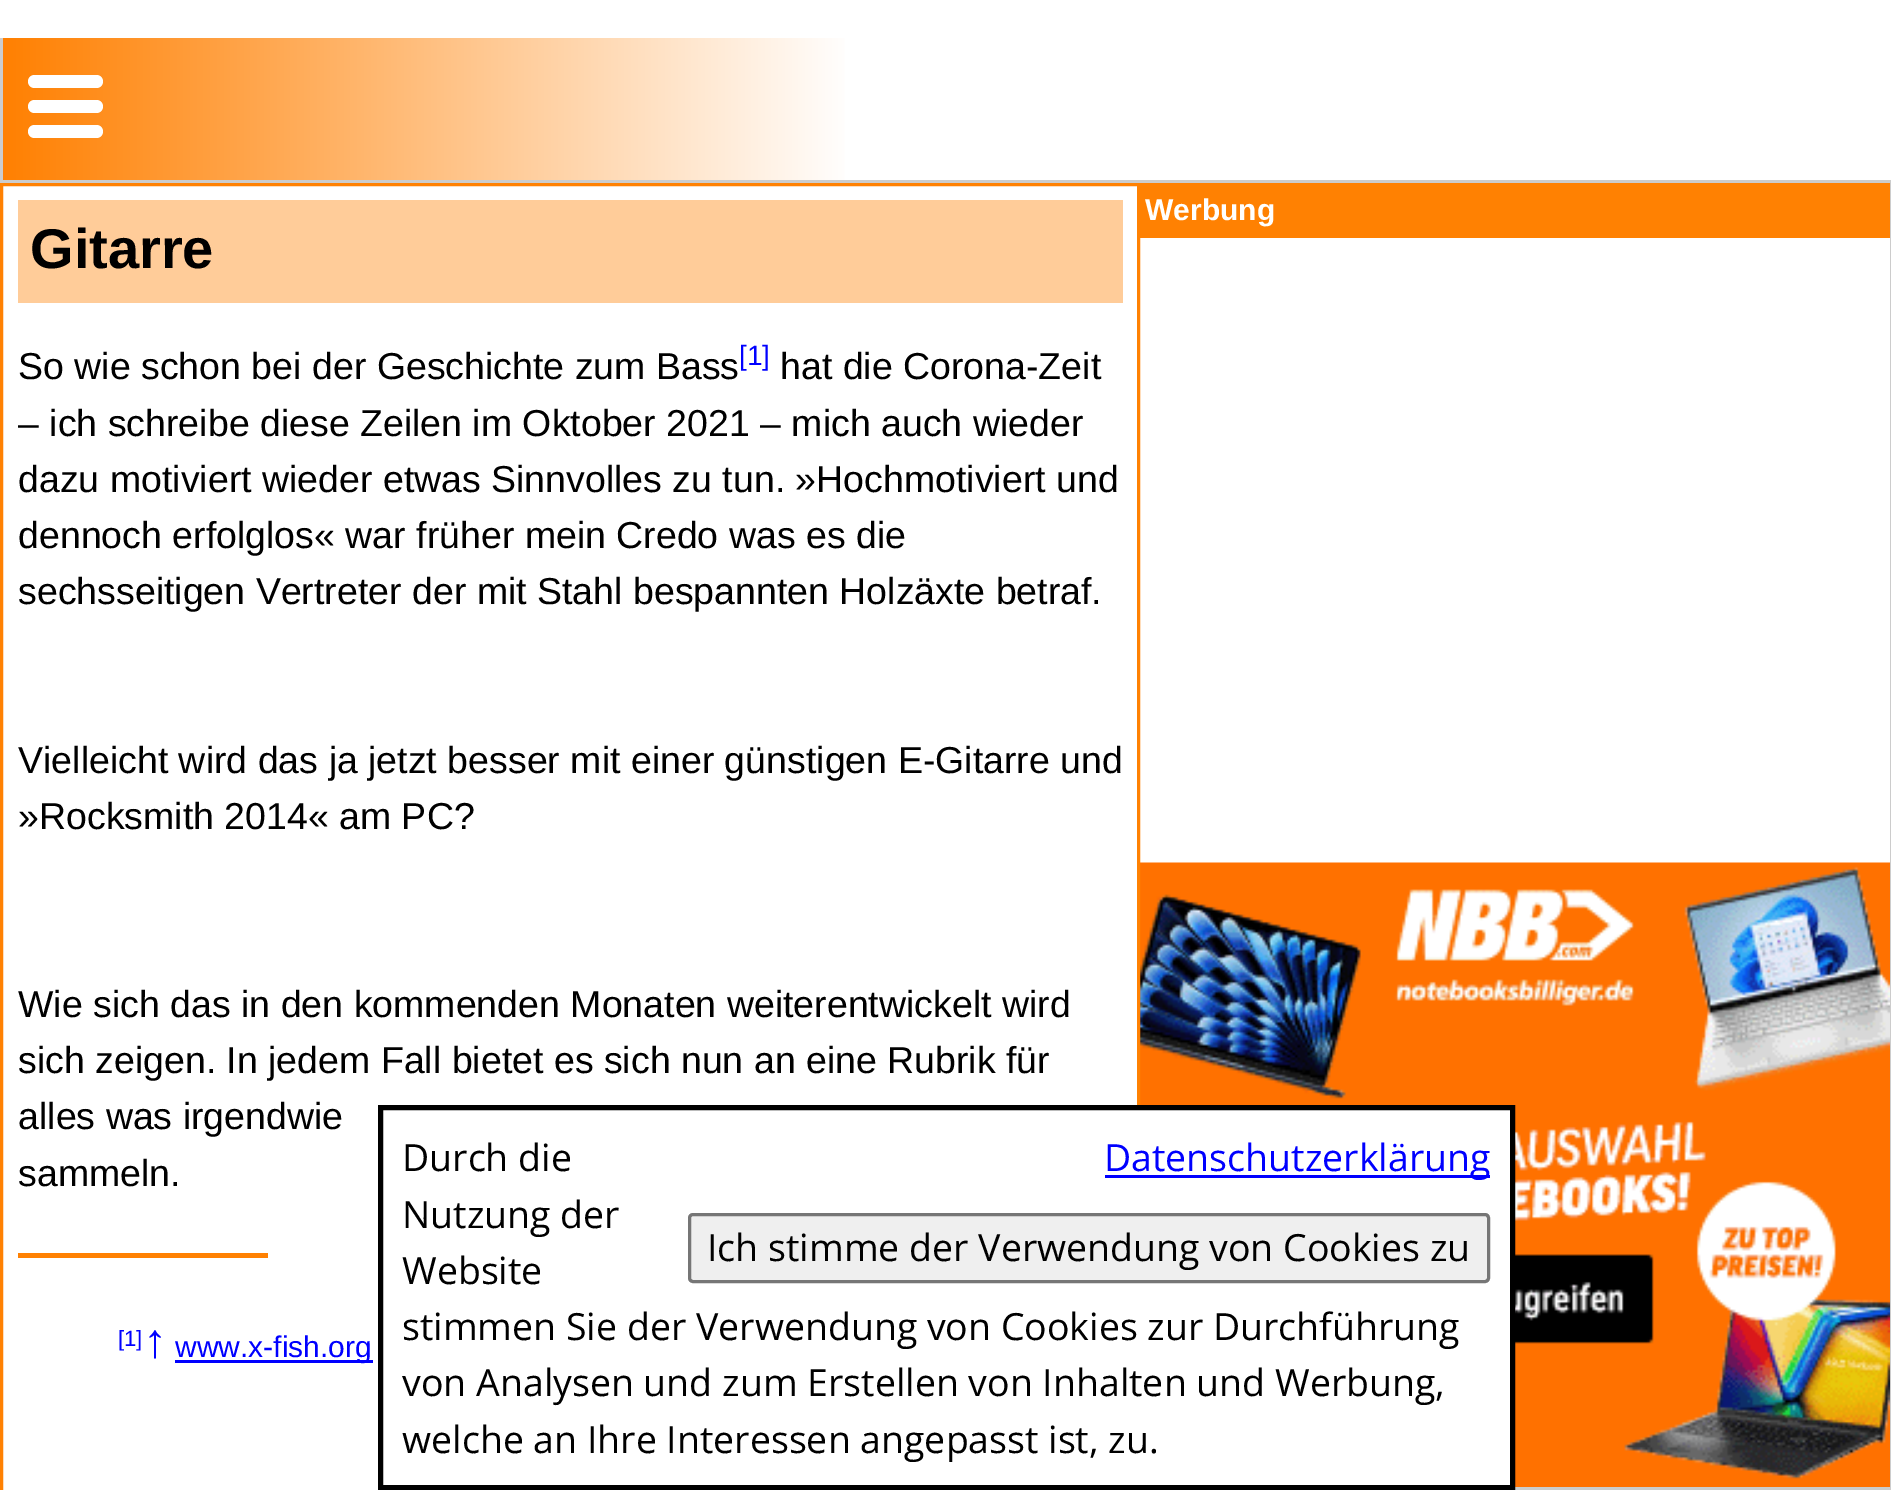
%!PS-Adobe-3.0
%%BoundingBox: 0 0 1891 1490
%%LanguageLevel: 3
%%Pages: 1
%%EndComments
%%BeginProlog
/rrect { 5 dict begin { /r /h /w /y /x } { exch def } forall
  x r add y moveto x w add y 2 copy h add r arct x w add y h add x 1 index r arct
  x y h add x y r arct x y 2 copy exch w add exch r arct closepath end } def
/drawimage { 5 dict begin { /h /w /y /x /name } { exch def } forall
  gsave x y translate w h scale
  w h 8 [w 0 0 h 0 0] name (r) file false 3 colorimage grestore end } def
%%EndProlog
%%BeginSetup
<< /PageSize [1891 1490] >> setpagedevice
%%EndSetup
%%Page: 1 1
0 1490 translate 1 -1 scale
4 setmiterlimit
1 setgray
0 0 1891 1490 rectfill
0.8 setgray
0 180 1891 3 rectfill
0 38 3 145 rectfill
gsave newpath 3 38 moveto 845 38 lineto 845 180 lineto 3 180 lineto closepath clip newpath
<< /ShadingType 2 /ColorSpace /DeviceRGB /Coords [2.5 109 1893 109] /Extend [true true] /Function << /FunctionType 3 /Domain [0 1] /Functions [<< /FunctionType 2 /Domain [0 1] /C0 [1 0.502 0.004] /C1 [1 1 1] /N 1 >> << /FunctionType 2 /Domain [0 1] /C0 [1 1 1] /C1 [1 1 1] /N 1 >>] /Bounds [0.45] /Encode [0 1 0 1] >> >> shfill grestore
1 setgray
28 75 75 13 6.5 rrect fill
28 100 75 13 6.5 rrect fill
28 125 75 13 6.5 rrect fill
0.8 setgray
1890 183 1 1307 rectfill
1 0.506 0.008 setrgbcolor
1140 183 750 55 rectfill
(images/1.raw) 1140 862 750 625 drawimage
0.796 0.804 0.804 setrgbcolor
1515 1487 375 3 rectfill
1 0.506 0.008 setrgbcolor
3 setlinewidth
1.5 184.5 1137 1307 rectstroke
1 0.8 0.6 setrgbcolor
18 200 1105 103 rectfill
1 0.506 0.008 setrgbcolor
18 1253 250 5 rectfill
0 0 1 setrgbcolor
175 1360 198 3 rectfill
1 setgray
1137 1110 373 375 rectfill
0 setgray
5 setlinewidth
380.5 1107.5 1132 380 rectstroke
0 0 1 setrgbcolor
1105 1175 385 3 rectfill
0.937 setgray
689.5 1214.5 799 67 3.5 rrect gsave fill grestore
0.463 setgray
3 setlinewidth
stroke
/LiberationSans-Bold [30 0 0 -30 0 0] selectfont
1 setgray
1145 220 moveto (Werbung) show
/LiberationSans-Bold [56 0 0 -56 0 0] selectfont
0 setgray
30 268 moveto (Gitarre) show
/LiberationSans-Regular [37.5 0 0 -37.5 0 0] selectfont
18 379 moveto (So wie schon bei der Geschichte zum Bass) show
/LiberationSans-Regular [28 0 0 -28 0 0] selectfont
0 0 1 setrgbcolor
739 365 moveto ([1]) show
/LiberationSans-Regular [37.5 0 0 -37.5 0 0] selectfont
0 setgray
780 379 moveto (hat die Corona-Zeit) show
18 436 moveto (– ich schreibe diese Zeilen im Oktober 2021 – mich auch wieder) show
18 492 moveto (dazu motiviert wieder etwas Sinnvolles zu tun. »Hochmotiviert und) show
18 548 moveto (dennoch erfolglos« war früher mein Credo was es die) show
18 604 moveto (sechsseitigen Vertreter der mit Stahl bespannten Holzäxte betraf.) show
18 773 moveto (Vielleicht wird das ja jetzt besser mit einer günstigen E-Gitarre und) show
18 829 moveto (»Rocksmith 2014« am PC?) show
18 1017 moveto (Wie sich das in den kommenden Monaten weiterentwickelt wird) show
18 1073 moveto (sich zeigen. In jedem Fall bietet es sich nun an eine Rubrik für) show
18 1129 moveto (alles was irgendwie) show
18 1186 moveto (sammeln.) show
/LiberationSans-Regular [22 0 0 -22 0 0] selectfont
0 0 1 setrgbcolor
118 1346 moveto ([1]) show
/LiberationSans-Regular [48 0 0 -48 0 0] selectfont
143 1357 moveto (↑) show
/LiberationSans-Regular [30 0 0 -30 0 0] selectfont
175 1357 moveto (www.x-fish.org) show
/OpenSans-Regular [37.5 0 0 -37.5 0 0] selectfont
0 setgray
402 1171 moveto (Durch die) show
402 1228 moveto (Nutzung der) show
402 1284 moveto (Website) show
402 1340 moveto (stimmen Sie der Verwendung von Cookies zur Durchführung) show
402 1396 moveto (von Analysen und zum Erstellen von Inhalten und Werbung,) show
402 1453 moveto (welche an Ihre Interessen angepasst ist, zu.) show
0 0 1 setrgbcolor
1104 1171 moveto (Datenschutzerklärung) show
0 setgray
707 1261 moveto (Ich stimme der Verwendung von Cookies zu) show
showpage
%%EOF
